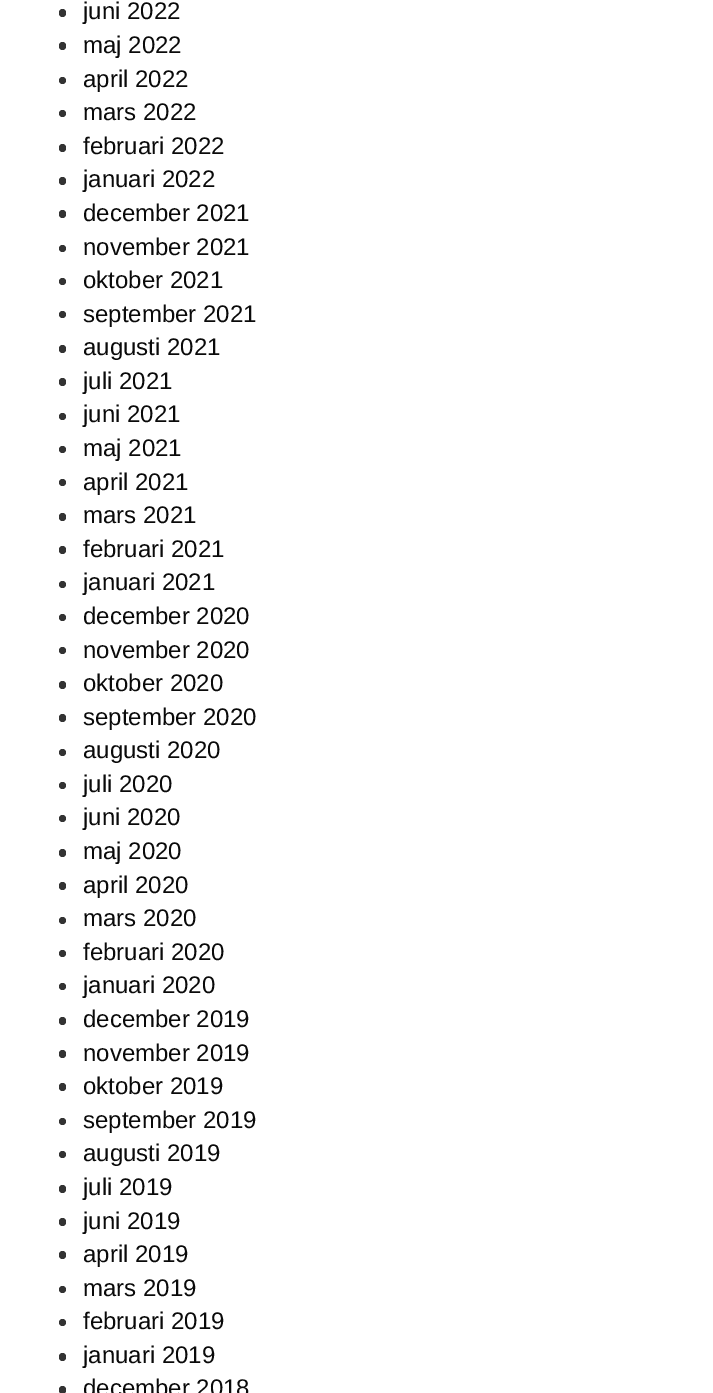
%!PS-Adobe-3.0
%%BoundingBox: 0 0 713 1393
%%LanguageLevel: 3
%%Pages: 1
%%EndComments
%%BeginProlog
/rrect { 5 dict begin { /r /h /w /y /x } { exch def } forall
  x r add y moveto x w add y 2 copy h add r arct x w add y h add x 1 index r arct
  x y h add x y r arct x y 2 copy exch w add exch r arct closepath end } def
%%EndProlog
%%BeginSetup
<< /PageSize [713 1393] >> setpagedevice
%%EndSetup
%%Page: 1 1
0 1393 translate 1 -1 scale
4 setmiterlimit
1 setgray
0 0 713 1393 rectfill
0.2 setgray
59 9 7 8 3.5 rrect fill
59 42 7 8 3.5 rrect fill
newpath 62.5 80.5 3.5 0 360 arc closepath fill
newpath 62.5 113.5 3.5 0 360 arc closepath fill
59 144 7 8 3.5 rrect fill
59 177 7 8 3.5 rrect fill
59 210 7 8 3.5 rrect fill
newpath 62.5 248.5 3.5 0 360 arc closepath fill
newpath 62.5 281.5 3.5 0 360 arc closepath fill
newpath 62.5 314.5 3.5 0 360 arc closepath fill
59 345 7 8 3.5 rrect fill
59 378 7 8 3.5 rrect fill
newpath 62.5 416.5 3.5 0 360 arc closepath fill
newpath 62.5 449.5 3.5 0 360 arc closepath fill
newpath 62.5 482.5 3.5 0 360 arc closepath fill
59 513 7 8 3.5 rrect fill
59 546 7 8 3.5 rrect fill
newpath 62.5 584.5 3.5 0 360 arc closepath fill
newpath 62.5 617.5 3.5 0 360 arc closepath fill
newpath 62.5 650.5 3.5 0 360 arc closepath fill
59 681 7 8 3.5 rrect fill
59 714 7 8 3.5 rrect fill
newpath 62.5 752.5 3.5 0 360 arc closepath fill
newpath 62.5 785.5 3.5 0 360 arc closepath fill
newpath 62.5 818.5 3.5 0 360 arc closepath fill
59 849 7 8 3.5 rrect fill
59 882 7 8 3.5 rrect fill
newpath 62.5 920.5 3.5 0 360 arc closepath fill
newpath 62.5 953.5 3.5 0 360 arc closepath fill
newpath 62.5 986.5 3.5 0 360 arc closepath fill
59 1017 7 8 3.5 rrect fill
59 1050 7 8 3.5 rrect fill
59 1083 7 8 3.5 rrect fill
newpath 62.5 1121.5 3.5 0 360 arc closepath fill
newpath 62.5 1154.5 3.5 0 360 arc closepath fill
59 1185 7 8 3.5 rrect fill
59 1218 7 8 3.5 rrect fill
59 1251 7 8 3.5 rrect fill
newpath 62.5 1289.5 3.5 0 360 arc closepath fill
newpath 62.5 1322.5 3.5 0 360 arc closepath fill
59 1353 7 8 3.5 rrect fill
59 1386 7 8 3.5 rrect fill
/LiberationSans-Regular [24 0 0 -24 0 0] selectfont
0.039 setgray
83 19 moveto (juni 2022) show
83 53 moveto (maj 2022) show
83 87 moveto (april 2022) show
83 120 moveto (mars 2022) show
83 154 moveto (februari 2022) show
83 187 moveto (januari 2022) show
83 221 moveto (december 2021) show
83 255 moveto (november 2021) show
83 288 moveto (oktober 2021) show
83 322 moveto (september 2021) show
83 355 moveto (augusti 2021) show
83 389 moveto (juli 2021) show
83 422 moveto (juni 2021) show
83 456 moveto (maj 2021) show
83 490 moveto (april 2021) show
83 523 moveto (mars 2021) show
83 557 moveto (februari 2021) show
83 590 moveto (januari 2021) show
83 624 moveto (december 2020) show
83 658 moveto (november 2020) show
83 691 moveto (oktober 2020) show
83 725 moveto (september 2020) show
83 758 moveto (augusti 2020) show
83 792 moveto (juli 2020) show
83 825 moveto (juni 2020) show
83 859 moveto (maj 2020) show
83 893 moveto (april 2020) show
83 926 moveto (mars 2020) show
83 960 moveto (februari 2020) show
83 993 moveto (januari 2020) show
83 1027 moveto (december 2019) show
83 1061 moveto (november 2019) show
83 1094 moveto (oktober 2019) show
83 1128 moveto (september 2019) show
83 1161 moveto (augusti 2019) show
83 1195 moveto (juli 2019) show
83 1229 moveto (juni 2019) show
83 1262 moveto (april 2019) show
83 1296 moveto (mars 2019) show
83 1329 moveto (februari 2019) show
83 1363 moveto (januari 2019) show
83 1396 moveto (december 2018) show
showpage
%%EOF
